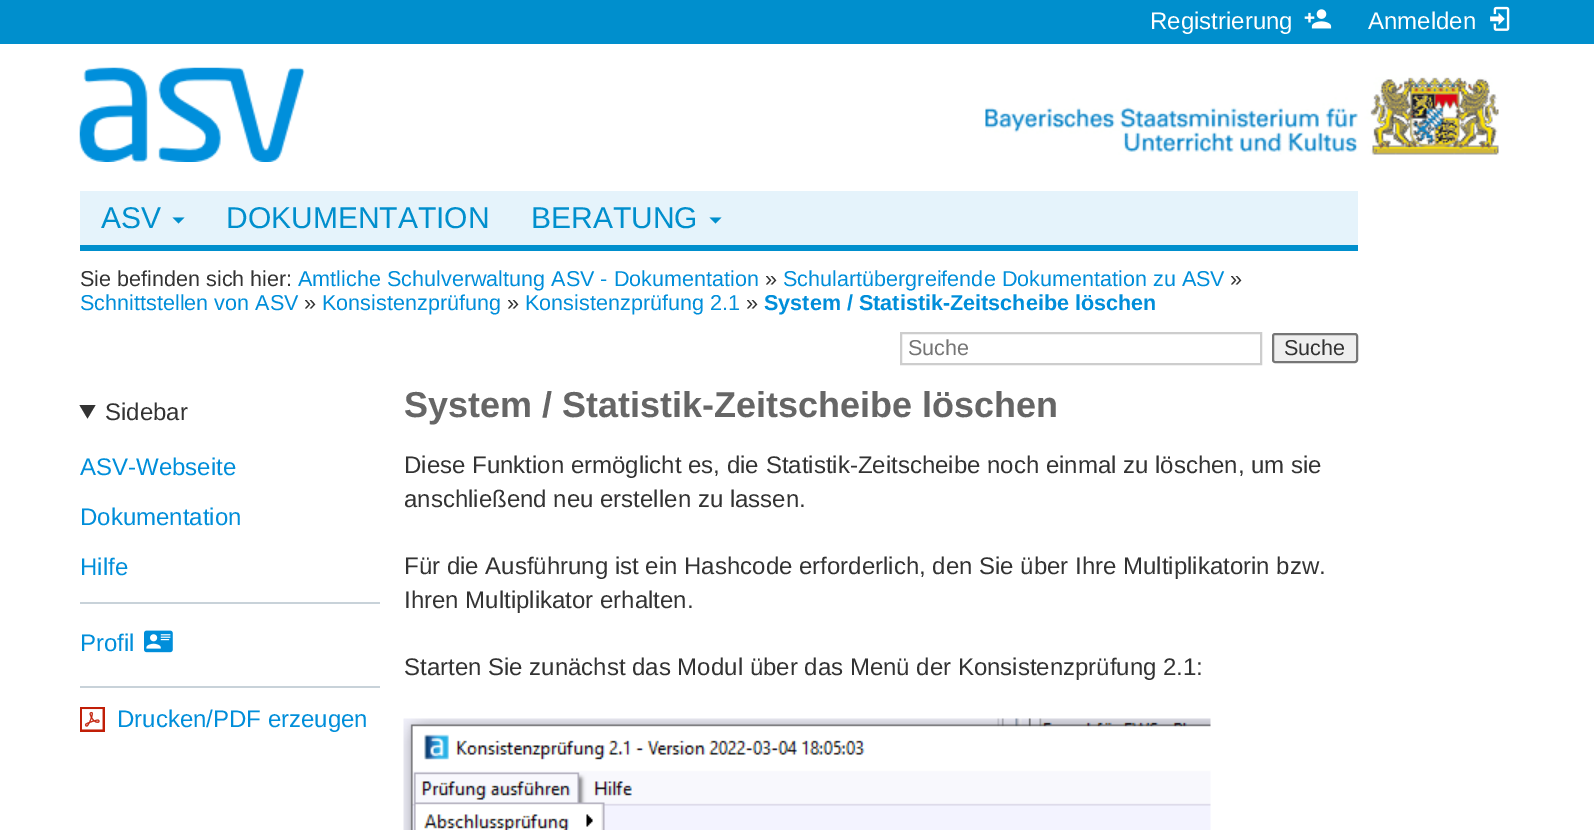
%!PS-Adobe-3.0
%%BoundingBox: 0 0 1594 830
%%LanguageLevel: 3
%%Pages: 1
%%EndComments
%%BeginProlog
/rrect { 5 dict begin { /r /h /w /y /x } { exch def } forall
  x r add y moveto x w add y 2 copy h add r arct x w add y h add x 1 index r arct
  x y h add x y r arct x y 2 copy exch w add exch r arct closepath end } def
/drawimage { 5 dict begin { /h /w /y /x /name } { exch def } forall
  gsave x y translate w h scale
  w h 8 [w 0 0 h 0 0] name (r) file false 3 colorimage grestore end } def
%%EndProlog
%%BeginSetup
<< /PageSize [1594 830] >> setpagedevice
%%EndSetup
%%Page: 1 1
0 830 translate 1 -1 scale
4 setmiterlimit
1 setgray
0 0 1594 830 rectfill
0 0.561 0.804 setrgbcolor
0 0 1594 44 rectfill
(images/1.raw) 1304 9 28 20 drawimage
(images/2.raw) 1490 6 20 25 drawimage
(images/3.raw) 79 67 226 95 drawimage
(images/4.raw) 985 77 514 78 drawimage
0.898 0.953 0.984 setrgbcolor
80 191 1278 54 rectfill
0 0.561 0.804 setrgbcolor
80 245 1278 6 rectfill
newpath 172.5 217.5 moveto 184.5 217.5 lineto 178.5 223.5 lineto closepath fill
newpath 709.5 217.5 moveto 721.5 217.5 lineto 715.5 223.5 lineto closepath fill
0.804 setgray
2 setlinewidth
901 333 360 31 rectstroke
0.937 setgray
1273 334 84 28 2 rrect gsave fill grestore
0.463 setgray
stroke
0.2 setgray
newpath 79.5 405 moveto 95.5 405 lineto 87.5 418.5 lineto closepath fill
0.784 0.824 0.851 setrgbcolor
80 602 300 2 rectfill
(images/5.raw) 144 630 29 23 drawimage
80 686 300 2 rectfill
(images/6.raw) 80 707 25 25 drawimage
(images/7.raw) 403 718 808 112 drawimage
/LiberationSans-Regular [24 0 0 -24 0 0] selectfont
1 setgray
1150 29 moveto (Registrierung) show
1368 29 moveto (Anmelden) show
/LiberationSans-Regular [30 0 0 -30 0 0] selectfont
0 0.561 0.804 setrgbcolor
101 228 moveto (ASV) show
226 228 moveto (DOKUMENTATION) show
531 228 moveto (BERATUNG) show
/LiberationSans-Regular [21.6 0 0 -21.6 0 0] selectfont
0.2 setgray
80 286 moveto (Sie befinden sich hier:) show
0 0.557 0.855 setrgbcolor
298 286 moveto (Amtliche Schulverwaltung ASV - Dokumentation) show
0.2 setgray
765 286 moveto (») show
0 0.557 0.855 setrgbcolor
783 286 moveto (Schulartübergreifende Dokumentation zu ASV) show
0.2 setgray
1230 286 moveto (») show
0 0.557 0.855 setrgbcolor
80 310 moveto (Schnittstellen von ASV) show
0.2 setgray
304 310 moveto (») show
0 0.557 0.855 setrgbcolor
322 310 moveto (Konsistenzprüfung) show
0.2 setgray
507 310 moveto (») show
0 0.557 0.855 setrgbcolor
525 310 moveto (Konsistenzprüfung 2.1) show
0.2 setgray
746 310 moveto (») show
/LiberationSans-Bold [21.6 0 0 -21.6 0 0] selectfont
0 0.557 0.855 setrgbcolor
764 310 moveto (System / Statistik-Zeitscheibe löschen) show
/LiberationSans-Regular [21.6 0 0 -21.6 0 0] selectfont
0.459 setgray
908 355 moveto (Suche) show
0.2 setgray
1284 355 moveto (Suche) show
/LiberationSans-Regular [24 0 0 -24 0 0] selectfont
105 420 moveto (Sidebar) show
0 0.557 0.855 setrgbcolor
80 475 moveto (ASV-Webseite) show
80 525 moveto (Dokumentation) show
80 575 moveto (Hilfe) show
80 651 moveto (Profil) show
117 727 moveto (Drucken/PDF erzeugen) show
/LiberationSans-Bold [36 0 0 -36 0 0] selectfont
0.4 setgray
404 417 moveto (System / Statistik-Zeitscheibe löschen) show
/LiberationSans-Regular [24 0 0 -24 0 0] selectfont
0.2 setgray
404 473 moveto (Diese Funktion ermöglicht es, die Statistik-Zeitscheibe noch einmal zu löschen, um sie) show
404 507 moveto (anschließend neu erstellen zu lassen.) show
404 574 moveto (Für die Ausführung ist ein Hashcode erforderlich, den Sie über Ihre Multiplikatorin bzw.) show
404 608 moveto (Ihren Multiplikator erhalten.) show
404 675 moveto (Starten Sie zunächst das Modul über das Menü der Konsistenzprüfung 2.1:) show
showpage
%%EOF
